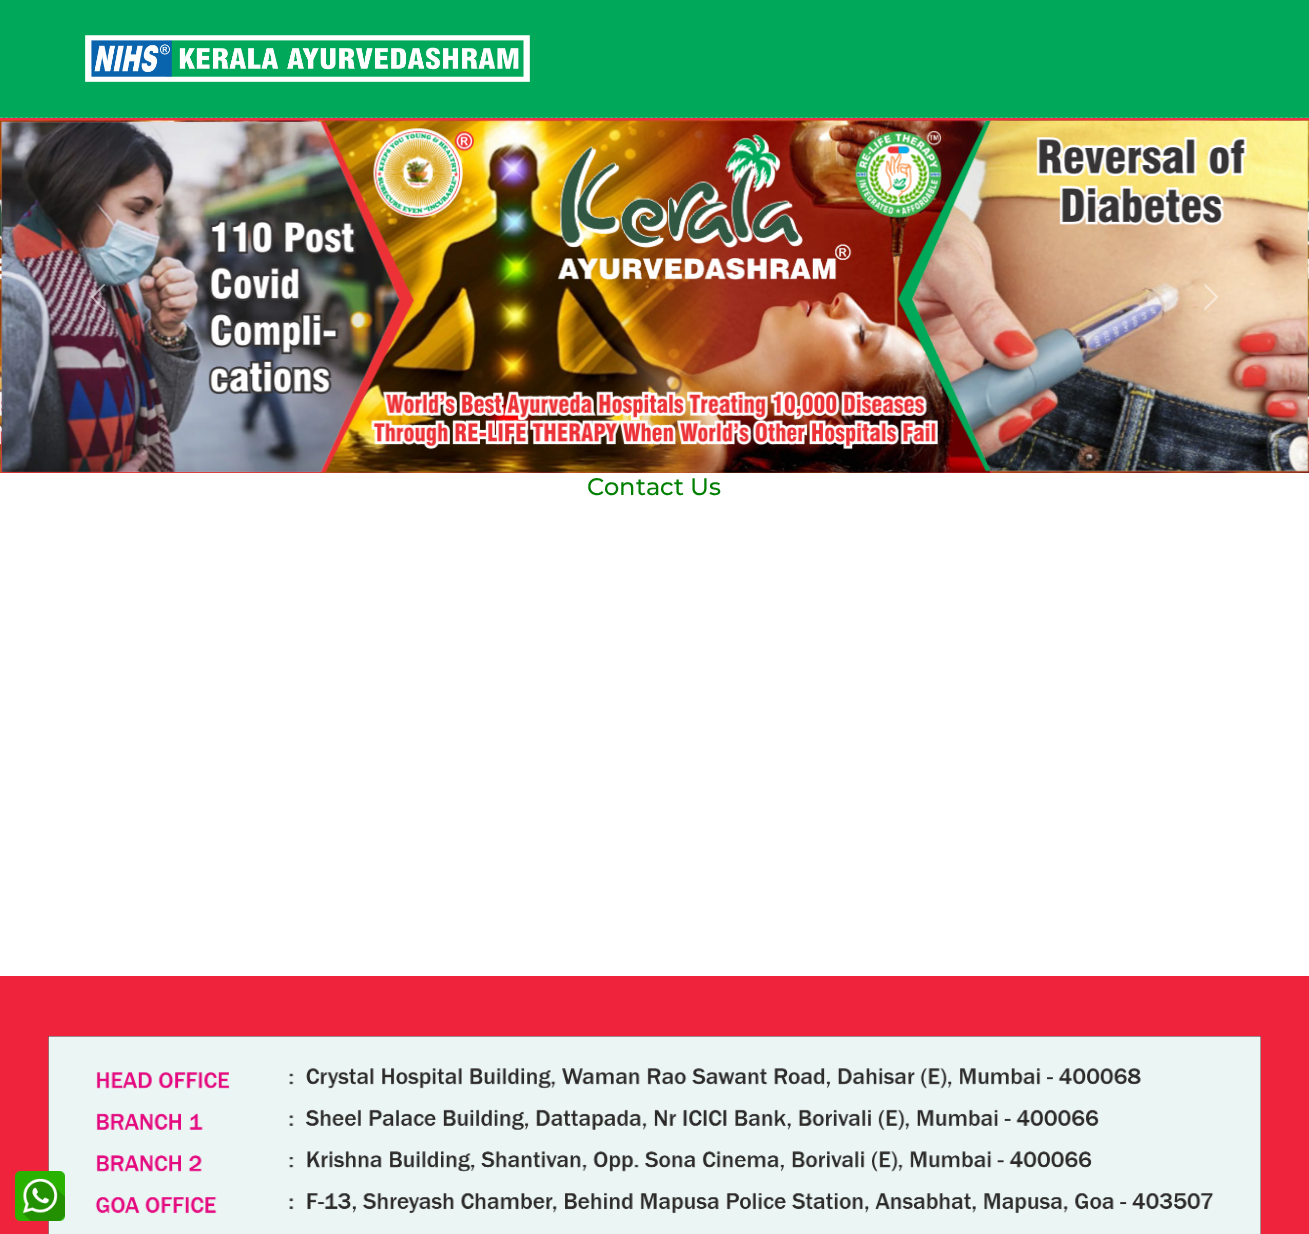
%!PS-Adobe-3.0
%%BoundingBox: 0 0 1309 1234
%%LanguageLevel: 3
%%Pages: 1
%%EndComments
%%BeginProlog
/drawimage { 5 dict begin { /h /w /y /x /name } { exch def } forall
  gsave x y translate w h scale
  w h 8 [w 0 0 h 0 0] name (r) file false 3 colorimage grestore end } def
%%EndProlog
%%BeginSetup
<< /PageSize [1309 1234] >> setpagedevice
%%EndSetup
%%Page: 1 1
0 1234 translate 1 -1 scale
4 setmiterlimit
1 setgray
0 0 1309 1234 rectfill
0 0.659 0.349 setrgbcolor
0 0 1309 118 rectfill
0.2 0.725 0.478 setrgbcolor
[3 2] 0 setdash
newpath 0 117.5 moveto 1309 117.5 lineto stroke
(images/1.raw) 85 35 445 47 drawimage
0.941 0.18 0.275 setrgbcolor
0 118 1309 355 rectfill
(images/2.raw) 0 120 1309 353 drawimage
(images/3.raw) 0 120 1309 353 drawimage
(images/4.raw) 91 284 14 26 drawimage
(images/5.raw) 1204 284 14 26 drawimage
0.937 0.137 0.235 setrgbcolor
0 976 1309 258 rectfill
(images/6.raw) 48 1036 1213 198 drawimage
(images/7.raw) 15 1171 50 50 drawimage
/Montserrat-Medium [24 0 0 -24 0 0] selectfont
0 0.502 0 setrgbcolor
587 495 moveto (Contact Us) show
showpage
%%EOF
